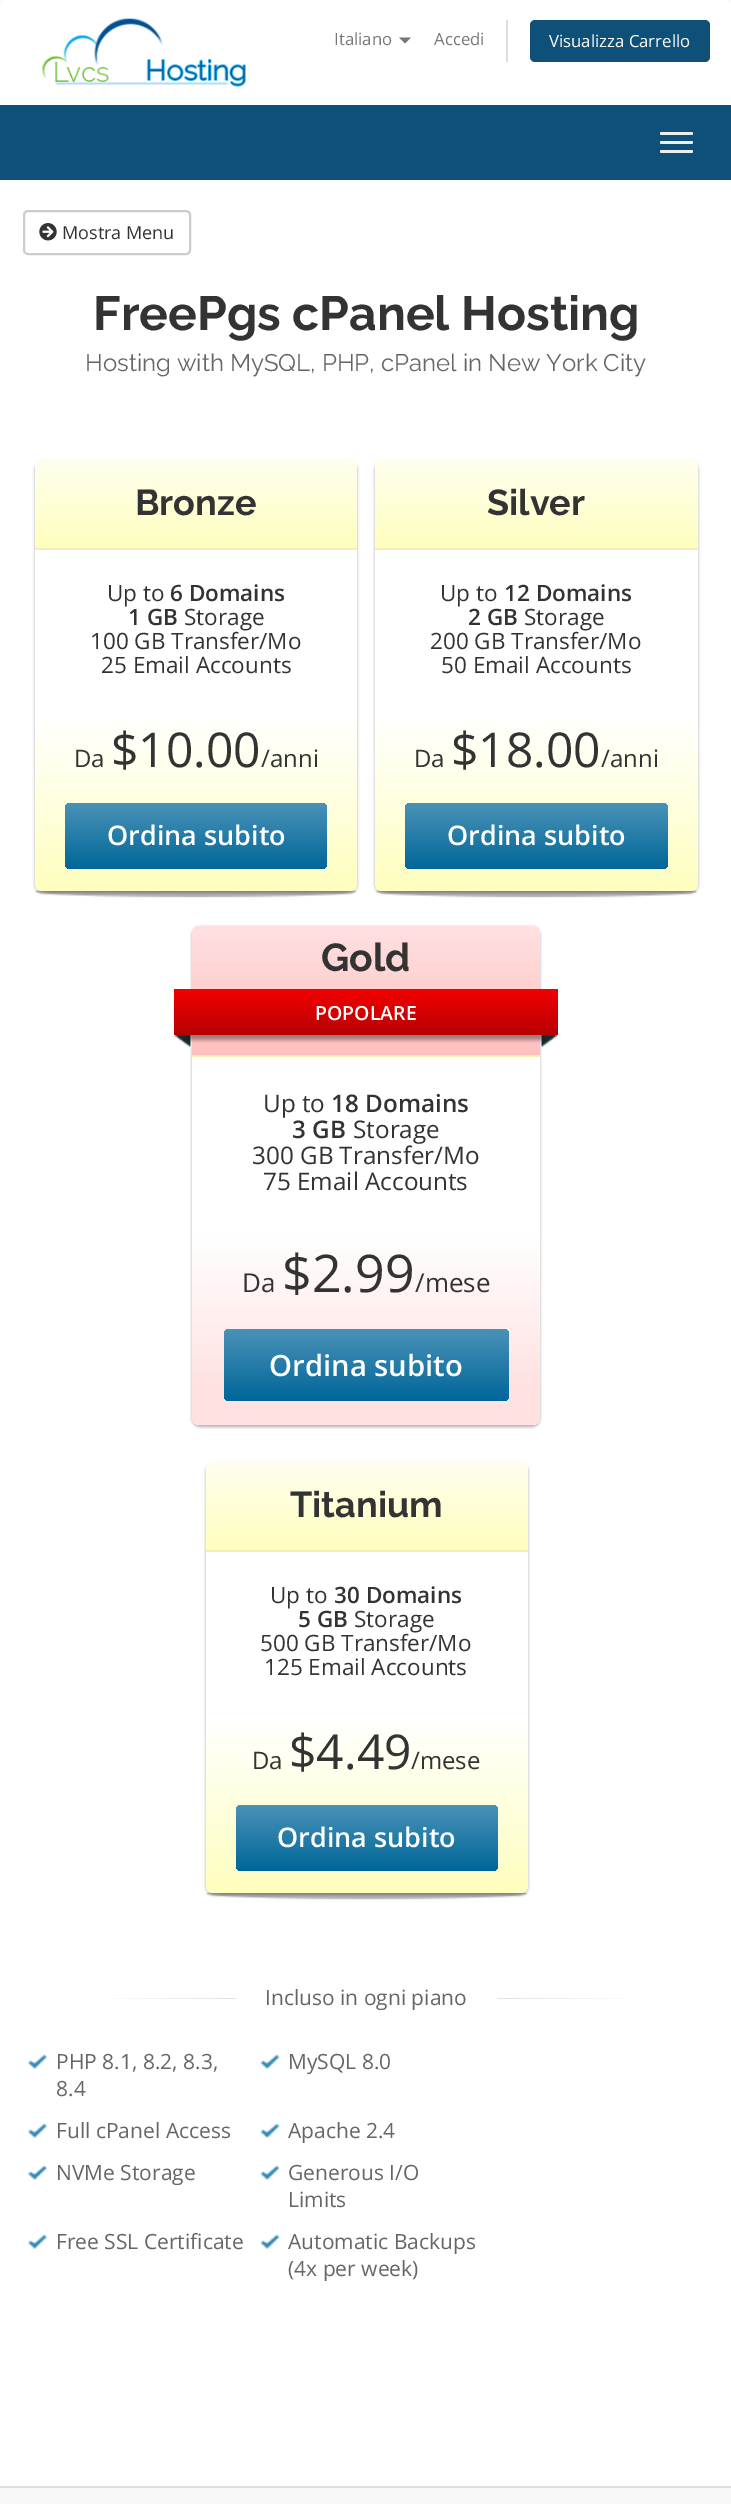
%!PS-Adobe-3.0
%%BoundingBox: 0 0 731 2504
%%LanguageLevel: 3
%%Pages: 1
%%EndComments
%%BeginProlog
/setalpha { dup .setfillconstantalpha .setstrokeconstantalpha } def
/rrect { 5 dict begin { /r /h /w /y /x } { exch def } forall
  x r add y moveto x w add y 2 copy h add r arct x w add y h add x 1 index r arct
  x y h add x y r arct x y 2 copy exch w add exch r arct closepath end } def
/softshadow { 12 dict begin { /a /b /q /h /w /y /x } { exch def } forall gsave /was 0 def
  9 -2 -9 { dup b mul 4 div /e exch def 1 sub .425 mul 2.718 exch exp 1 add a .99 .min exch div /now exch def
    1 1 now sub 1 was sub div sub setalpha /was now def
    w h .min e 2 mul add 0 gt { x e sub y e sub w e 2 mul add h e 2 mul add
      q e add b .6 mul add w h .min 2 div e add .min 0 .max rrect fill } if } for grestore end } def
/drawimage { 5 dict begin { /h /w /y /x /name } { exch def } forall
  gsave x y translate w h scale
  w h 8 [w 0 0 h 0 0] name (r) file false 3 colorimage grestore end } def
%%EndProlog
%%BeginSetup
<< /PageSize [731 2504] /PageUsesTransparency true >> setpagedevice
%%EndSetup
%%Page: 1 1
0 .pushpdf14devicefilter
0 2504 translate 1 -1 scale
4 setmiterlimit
0.973 setgray
0 0 731 2504 rectfill
1 setgray
newpath 8 0 moveto 724 0 lineto 728.5 0 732 3.5 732 8 curveto 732 105 lineto 0 105 lineto 0 8 lineto 0 3.5 3.5 0 8 0 curveto closepath fill
(images/1.raw) 42 18 204 69 drawimage
0.467 setgray
newpath 399 37.5 moveto 411 37.5 lineto 405 43.5 lineto closepath fill
0.867 setgray
506 20 2 42 rectfill
0.055 0.314 0.467 setrgbcolor
530 20 180 42 5 rrect fill
0 105 731 75 rectfill
0.933 setgray
660 132 33 3 1.5 rrect fill
660 141 33 3 1.5 rrect fill
660 150 33 3 1.5 rrect fill
1 setgray
0 180 731 2306 rectfill
0.8 setgray
2 setlinewidth
24 211 166 43 4 rrect stroke
(images/2.raw) 39 223 18 18 drawimage
(images/3.raw) 35 889 322 9 drawimage
0 setgray
35 461 322 432 8 1.5 0.3 softshadow
1 setgray
35 459 322 432 8 rrect fill
gsave newpath 43 459 moveto 349 459 lineto 353.5 459 357 462.5 357 467 curveto 357 549 lineto 35 549 lineto 35 467 lineto 35 462.5 38.5 459 43 459 curveto closepath clip newpath
<< /ShadingType 2 /ColorSpace /DeviceRGB /Coords [196 459 196 549] /Extend [true true] /Function << /FunctionType 2 /Domain [0 1] /C0 [1 1 0.937] /C1 [0.996 0.996 0.745] /N 1 >> >> shfill grestore
0.945 0.945 0.714 setrgbcolor
35 548 322 2 rectfill
gsave newpath 35 714 moveto 357 714 lineto 357 883 lineto 357 887.5 353.5 891 349 891 curveto 43 891 lineto 38.5 891 35 887.5 35 883 curveto closepath clip newpath
<< /ShadingType 2 /ColorSpace /DeviceRGB /Coords [196 714 196 891] /Extend [true true] /Function << /FunctionType 3 /Domain [0 1] /Functions [<< /FunctionType 2 /Domain [0 1] /C0 [1 1 1] /C1 [1 1 1] /N 1 >> << /FunctionType 2 /Domain [0 1] /C0 [1 1 1] /C1 [0.996 0.996 0.745] /N 1 >>] /Bounds [0.02] /Encode [0 1 0 1] >> >> shfill grestore
gsave 65 803 262 66 5 rrect clip newpath
<< /ShadingType 2 /ColorSpace /DeviceRGB /Coords [196 803 196 869] /Extend [true true] /Function << /FunctionType 2 /Domain [0 1] /C0 [0.29 0.573 0.718] /C1 [0 0.4 0.6] /N 1 >> >> shfill grestore
(images/4.raw) 375 889 322 9 drawimage
0 setgray
375 461 323 432 8 1.5 0.3 softshadow
1 setgray
375 459 323 432 8 rrect fill
gsave newpath 383 459 moveto 690 459 lineto 694.5 459 698 462.5 698 467 curveto 698 549 lineto 375 549 lineto 375 467 lineto 375 462.5 378.5 459 383 459 curveto closepath clip newpath
<< /ShadingType 2 /ColorSpace /DeviceRGB /Coords [536 459 536 549] /Extend [true true] /Function << /FunctionType 2 /Domain [0 1] /C0 [1 1 0.937] /C1 [0.996 0.996 0.745] /N 1 >> >> shfill grestore
0.945 0.945 0.714 setrgbcolor
375 548 323 2 rectfill
gsave newpath 375 714 moveto 698 714 lineto 698 883 lineto 698 887.5 694.5 891 690 891 curveto 383 891 lineto 378.5 891 375 887.5 375 883 curveto closepath clip newpath
<< /ShadingType 2 /ColorSpace /DeviceRGB /Coords [536 714 536 891] /Extend [true true] /Function << /FunctionType 3 /Domain [0 1] /Functions [<< /FunctionType 2 /Domain [0 1] /C0 [1 1 1] /C1 [1 1 1] /N 1 >> << /FunctionType 2 /Domain [0 1] /C0 [1 1 1] /C1 [0.996 0.996 0.745] /N 1 >>] /Bounds [0.02] /Encode [0 1 0 1] >> >> shfill grestore
gsave 405 803 263 66 5 rrect clip newpath
<< /ShadingType 2 /ColorSpace /DeviceRGB /Coords [536 803 536 869] /Extend [true true] /Function << /FunctionType 2 /Domain [0 1] /C0 [0.29 0.573 0.718] /C1 [0 0.4 0.6] /N 1 >> >> shfill grestore
0 setgray
192 927 348 500 8 1.5 0.3 softshadow
1 setgray
192 926 348 499 8 rrect fill
gsave newpath 200 926 moveto 532 926 lineto 536.5 926 540 929.5 540 934 curveto 540 1056 lineto 192 1056 lineto 192 934 lineto 192 929.5 195.5 926 200 926 curveto closepath clip newpath
<< /ShadingType 2 /ColorSpace /DeviceRGB /Coords [366 926 366 1056] /Extend [true true] /Function << /FunctionType 2 /Domain [0 1] /C0 [1 0.882 0.882] /C1 [1 0.749 0.749] /N 1 >> >> shfill grestore
0.945 0.945 0.714 setrgbcolor
192 1055 348 2 rectfill
(images/5.raw) 174 1035 384 12 drawimage
0 setgray
185 1017 360 23 0 1.5 0.18 softshadow
gsave newpath 174 989 moveto 558 989 lineto 558 1035 lineto 174 1035 lineto closepath clip newpath
<< /ShadingType 2 /ColorSpace /DeviceRGB /Coords [366 989 366 1034] /Extend [true true] /Function << /FunctionType 2 /Domain [0 1] /C0 [0.953 0 0] /C1 [0.718 0.008 0.008] /N 1 >> >> shfill grestore
gsave newpath 192 1233 moveto 540 1233 lineto 540 1417 lineto 540 1421.5 536.5 1425 532 1425 curveto 200 1425 lineto 195.5 1425 192 1421.5 192 1417 curveto closepath clip newpath
<< /ShadingType 2 /ColorSpace /DeviceRGB /Coords [366 1234 366 1425] /Extend [true true] /Function << /FunctionType 3 /Domain [0 1] /Functions [<< /FunctionType 2 /Domain [0 1] /C0 [1 1 1] /C1 [1 0.882 0.882] /N 1 >> << /FunctionType 2 /Domain [0 1] /C0 [1 0.882 0.882] /C1 [1 0.882 0.882] /N 1 >>] /Bounds [0.82] /Encode [0 1 0 1] >> >> shfill grestore
gsave 224 1329 285 72 5 rrect clip newpath
<< /ShadingType 2 /ColorSpace /DeviceRGB /Coords [366 1329 366 1401] /Extend [true true] /Function << /FunctionType 2 /Domain [0 1] /C0 [0.29 0.573 0.718] /C1 [0 0.4 0.6] /N 1 >> >> shfill grestore
(images/3.raw) 206 1891 322 9 drawimage
206 1463 322 432 8 1.5 0.3 softshadow
1 setgray
206 1461 322 432 8 rrect fill
gsave newpath 214 1461 moveto 520 1461 lineto 524.5 1461 528 1464.5 528 1469 curveto 528 1551 lineto 206 1551 lineto 206 1469 lineto 206 1464.5 209.5 1461 214 1461 curveto closepath clip newpath
<< /ShadingType 2 /ColorSpace /DeviceRGB /Coords [367 1461 367 1551] /Extend [true true] /Function << /FunctionType 2 /Domain [0 1] /C0 [1 1 0.937] /C1 [0.996 0.996 0.745] /N 1 >> >> shfill grestore
0.945 0.945 0.714 setrgbcolor
206 1550 322 2 rectfill
gsave newpath 206 1716 moveto 528 1716 lineto 528 1885 lineto 528 1889.5 524.5 1893 520 1893 curveto 214 1893 lineto 209.5 1893 206 1889.5 206 1885 curveto closepath clip newpath
<< /ShadingType 2 /ColorSpace /DeviceRGB /Coords [367 1716 367 1893] /Extend [true true] /Function << /FunctionType 3 /Domain [0 1] /Functions [<< /FunctionType 2 /Domain [0 1] /C0 [1 1 1] /C1 [1 1 1] /N 1 >> << /FunctionType 2 /Domain [0 1] /C0 [1 1 1] /C1 [0.996 0.996 0.745] /N 1 >>] /Bounds [0.02] /Encode [0 1 0 1] >> >> shfill grestore
gsave 236 1805 262 66 5 rrect clip newpath
<< /ShadingType 2 /ColorSpace /DeviceRGB /Coords [367 1805 367 1871] /Extend [true true] /Function << /FunctionType 2 /Domain [0 1] /C0 [0.29 0.573 0.718] /C1 [0 0.4 0.6] /N 1 >> >> shfill grestore
(images/6.raw) 113 1998 512 1 drawimage
1 setgray
236 1998 261 1 rectfill
(images/7.raw) 28 2054 19 15 drawimage
(images/8.raw) 260 2054 20 15 drawimage
(images/7.raw) 28 2123 19 15 drawimage
(images/8.raw) 260 2123 20 15 drawimage
(images/7.raw) 28 2165 19 15 drawimage
(images/8.raw) 260 2165 20 15 drawimage
(images/7.raw) 28 2234 19 15 drawimage
(images/8.raw) 260 2234 20 15 drawimage
0.867 setgray
0 2486 731 2 rectfill
/OpenSans-Regular [16.75 0 0 -16.75 0 0] selectfont
0.467 setgray
334 45 moveto (Italiano) show
434 45 moveto (Accedi) show
1 setgray
549 47 moveto (Visualizza Carrello) show
/OpenSans-Regular [18 0 0 -18 0 0] selectfont
0.2 setgray
62 239 moveto (Mostra Menu) show
/Raleway-Bold [48 0 0 -48 0 0] selectfont
93 330 moveto (FreePgs cPanel Hosting) show
/Raleway-Regular [24 0 0 -24 0 0] selectfont
0.4 setgray
85 371 moveto (Hosting with MySQL, PHP, cPanel in New York City) show
/Raleway-Bold [36 0 0 -36 0 0] selectfont
0.2 setgray
135 515 moveto (Bronze) show
/OpenSans-Regular [22.5 0 0 -22.5 0 0] selectfont
107 601 moveto (Up to) show
/OpenSans-SemiBold [22.5 0 0 -22.5 0 0] selectfont
170 601 moveto (6 Domains) show
128 625 moveto (1 GB) show
/OpenSans-Regular [22.5 0 0 -22.5 0 0] selectfont
184 625 moveto (Storage) show
90 649 moveto (100 GB Transfer/Mo) show
101 673 moveto (25 Email Accounts) show
/OpenSans-Regular [24 0 0 -24 0 0] selectfont
74 767 moveto (Da) show
/OpenSans-Regular [48 0 0 -48 0 0] selectfont
111 767 moveto ($10.00) show
/OpenSans-Regular [24 0 0 -24 0 0] selectfont
261 767 moveto (/anni) show
/OpenSans-SemiBold [27 0 0 -27 0 0] selectfont
1 setgray
107 845 moveto (Ordina subito) show
/Raleway-Bold [36 0 0 -36 0 0] selectfont
0.2 setgray
487 515 moveto (Silver) show
/OpenSans-Regular [22.5 0 0 -22.5 0 0] selectfont
440 601 moveto (Up to) show
/OpenSans-SemiBold [22.5 0 0 -22.5 0 0] selectfont
504 601 moveto (12 Domains) show
468 625 moveto (2 GB) show
/OpenSans-Regular [22.5 0 0 -22.5 0 0] selectfont
524 625 moveto (Storage) show
430 649 moveto (200 GB Transfer/Mo) show
441 673 moveto (50 Email Accounts) show
/OpenSans-Regular [24 0 0 -24 0 0] selectfont
414 767 moveto (Da) show
/OpenSans-Regular [48 0 0 -48 0 0] selectfont
451 767 moveto ($18.00) show
/OpenSans-Regular [24 0 0 -24 0 0] selectfont
601 767 moveto (/anni) show
/OpenSans-SemiBold [27 0 0 -27 0 0] selectfont
1 setgray
447 845 moveto (Ordina subito) show
/Raleway-Bold [39 0 0 -39 0 0] selectfont
0.2 setgray
321 971 moveto (Gold) show
/OpenSans-SemiBold [19.5 0 0 -19.5 0 0] selectfont
1 setgray
315 1020 moveto (POPOLARE) show
/OpenSans-Regular [24.25 0 0 -24.25 0 0] selectfont
0.2 setgray
263 1112 moveto (Up to) show
/OpenSans-SemiBold [24.25 0 0 -24.25 0 0] selectfont
331 1112 moveto (18 Domains) show
292 1138 moveto (3 GB) show
/OpenSans-Regular [24.25 0 0 -24.25 0 0] selectfont
353 1138 moveto (Storage) show
252 1164 moveto (300 GB Transfer/Mo) show
263 1190 moveto (75 Email Accounts) show
/OpenSans-Regular [26 0 0 -26 0 0] selectfont
242 1292 moveto (Da) show
/OpenSans-Regular [52 0 0 -52 0 0] selectfont
282 1292 moveto ($2.99) show
/OpenSans-Regular [26 0 0 -26 0 0] selectfont
415 1292 moveto (/mese) show
/OpenSans-SemiBold [29.25 0 0 -29.25 0 0] selectfont
1 setgray
269 1376 moveto (Ordina subito) show
/Raleway-Bold [36 0 0 -36 0 0] selectfont
0.2 setgray
290 1517 moveto (Titanium) show
/OpenSans-Regular [22.5 0 0 -22.5 0 0] selectfont
270 1603 moveto (Up to) show
/OpenSans-SemiBold [22.5 0 0 -22.5 0 0] selectfont
334 1603 moveto (30 Domains) show
298 1627 moveto (5 GB) show
/OpenSans-Regular [22.5 0 0 -22.5 0 0] selectfont
354 1627 moveto (Storage) show
260 1651 moveto (500 GB Transfer/Mo) show
264 1675 moveto (125 Email Accounts) show
/OpenSans-Regular [24 0 0 -24 0 0] selectfont
252 1769 moveto (Da) show
/OpenSans-Regular [48 0 0 -48 0 0] selectfont
289 1769 moveto ($4.49) show
/OpenSans-Regular [24 0 0 -24 0 0] selectfont
411 1769 moveto (/mese) show
/OpenSans-SemiBold [27 0 0 -27 0 0] selectfont
1 setgray
277 1847 moveto (Ordina subito) show
/OpenSans-Regular [21 0 0 -21 0 0] selectfont
0.4 setgray
265 2005 moveto (Incluso in ogni piano) show
56 2069 moveto (PHP 8.1, 8.2, 8.3,) show
56 2096 moveto (8.4) show
288 2069 moveto (MySQL 8.0) show
56 2138 moveto (Full cPanel Access) show
288 2138 moveto (Apache 2.4) show
56 2180 moveto (NVMe Storage) show
288 2180 moveto (Generous I/O) show
288 2207 moveto (Limits) show
56 2249 moveto (Free SSL Certificate) show
288 2249 moveto (Automatic Backups) show
288 2276 moveto (\(4x per week\)) show
.poppdf14devicefilter showpage
%%EOF
